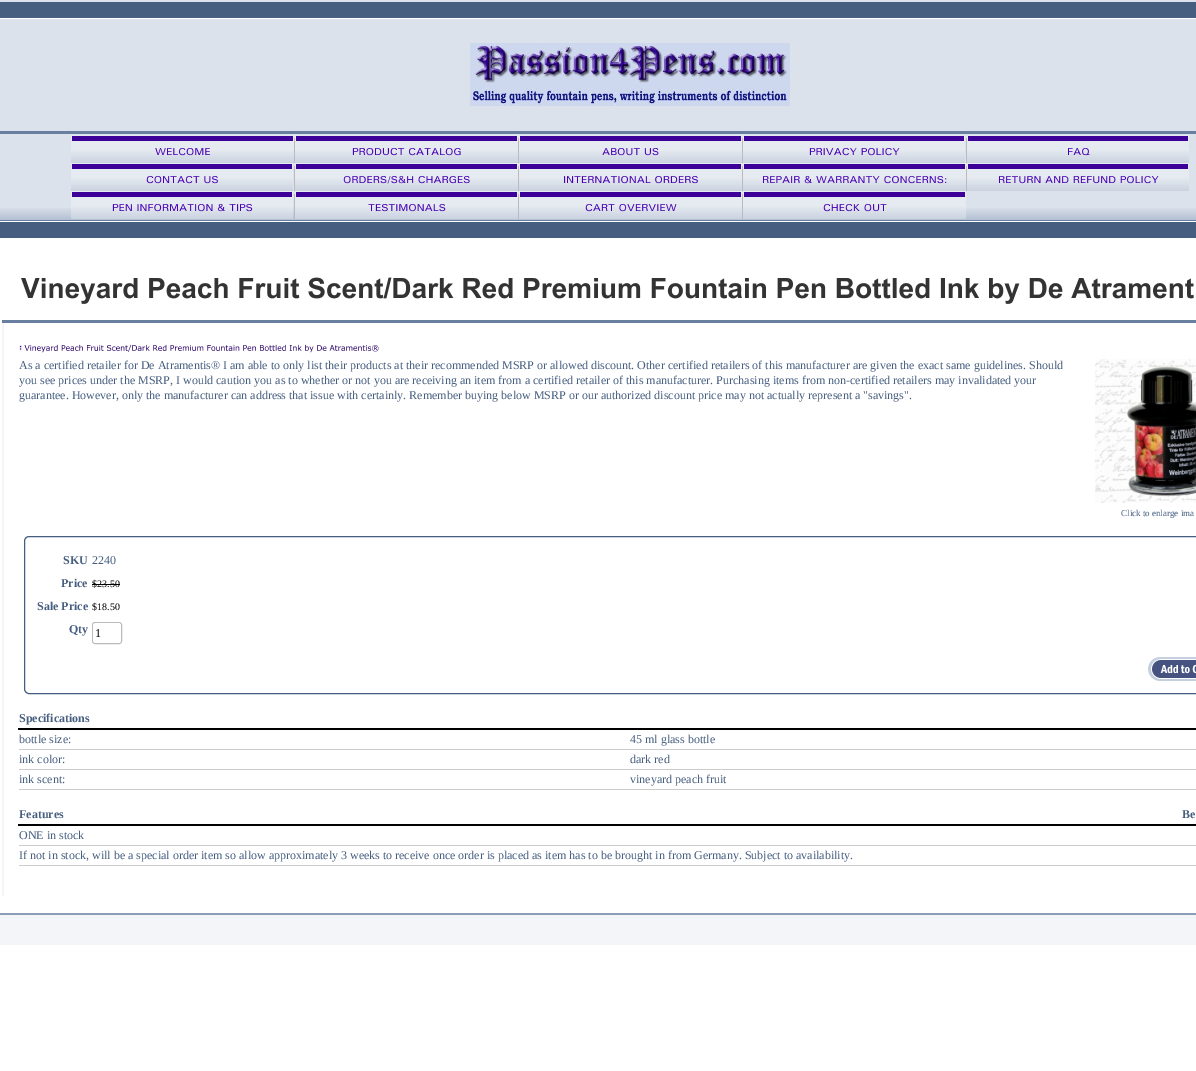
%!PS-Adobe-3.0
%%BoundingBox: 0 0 1196 1071
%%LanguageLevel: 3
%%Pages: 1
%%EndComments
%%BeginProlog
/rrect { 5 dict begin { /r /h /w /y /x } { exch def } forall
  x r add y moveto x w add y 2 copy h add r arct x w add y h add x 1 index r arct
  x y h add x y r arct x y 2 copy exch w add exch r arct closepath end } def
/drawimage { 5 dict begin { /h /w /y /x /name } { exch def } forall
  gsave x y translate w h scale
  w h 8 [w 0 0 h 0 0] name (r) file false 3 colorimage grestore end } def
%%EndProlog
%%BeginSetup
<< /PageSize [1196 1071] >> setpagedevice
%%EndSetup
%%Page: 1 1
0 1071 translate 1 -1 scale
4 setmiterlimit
1 setgray
0 0 1196 1071 rectfill
0.859 0.886 0.922 setrgbcolor
0 0 1196 208 rectfill
0.275 0.369 0.502 setrgbcolor
0 2 1196 16 rectfill
1 setgray
0 18 1196 1 rectfill
0.412 0.498 0.624 setrgbcolor
0 131 1196 3 rectfill
(images/1.raw) 470 43 320 63 drawimage
(images/2.raw) 0 208 1196 12 drawimage
0 220 1196 1 rectfill
(images/3.raw) 71 135 223 28 drawimage
(images/4.raw) 294 135 224 28 drawimage
(images/5.raw) 518 135 224 28 drawimage
(images/6.raw) 742 135 223 28 drawimage
(images/7.raw) 966 135 223 28 drawimage
(images/8.raw) 71 163 222 28 drawimage
(images/9.raw) 294 163 224 28 drawimage
(images/10.raw) 518 163 224 28 drawimage
(images/11.raw) 742 163 224 28 drawimage
(images/12.raw) 966 163 223 28 drawimage
(images/13.raw) 71 191 222 28 drawimage
(images/14.raw) 294 191 224 28 drawimage
(images/15.raw) 518 191 224 28 drawimage
(images/16.raw) 742 191 224 28 drawimage
0.275 0.369 0.502 setrgbcolor
0 221 2 17 rectfill
1 setgray
0 221 2 1 rectfill
0.275 0.369 0.502 setrgbcolor
2 222 1194 16 rectfill
(images/17.raw) 21 277 1173 27 drawimage
0.412 0.498 0.624 setrgbcolor
2 320 1194 3 rectfill
0.953 0.961 0.973 setrgbcolor
2 323 2 573 rectfill
(images/18.raw) 19 344 360 9 drawimage
(images/19.raw) 1095 359 101 144 drawimage
0.275 0.369 0.502 setrgbcolor
24.5 536.5 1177 157 4.5 rrect stroke
0 setgray
92 584 28 1 rectfill
0.733 setgray
92.5 622.5 29 21 2.5 rrect stroke
1 setgray
93 623 28 20 3 rrect fill
(images/20.raw) 1148 657 48 24 drawimage
0 setgray
18 728 1178 2 rectfill
0.8 setgray
19 749 1177 1 rectfill
19 769 1177 1 rectfill
19 789 1177 1 rectfill
0 setgray
18 824 1178 2 rectfill
0.8 setgray
19 845 1177 1 rectfill
19 865 1177 1 rectfill
0.545 0.62 0.725 setrgbcolor
0 913 1196 2 rectfill
0.953 0.961 0.973 setrgbcolor
0 915 1196 30 rectfill
/LiberationSerif-Regular [12 0 0 -12 0 0] selectfont
0.275 0.369 0.502 setrgbcolor
19 369 moveto (As a certified retailer for De Atramentis® I am able to only list their products at their recommended MSRP or allowed discount. Other certified retailers of this manufacturer are given the exact same guidelines. Should) show
19 384 moveto (you see prices under the MSRP, I would caution you as to whether or not you are receiving an item from a certified retailer of this manufacturer. Purchasing items from non-certified retailers may invalidated your) show
19 399 moveto (guarantee. However, only the manufacturer can address that issue with certainly. Remember buying below MSRP or our authorized discount price may not actually represent a "savings".) show
/LiberationSerif-Regular [9 0 0 -9 0 0] selectfont
1121 516 moveto (Click to enlarge ima) show
/LiberationSerif-Bold [12 0 0 -12 0 0] selectfont
63 564 moveto (SKU) show
/LiberationSerif-Regular [12 0 0 -12 0 0] selectfont
92 564 moveto (2240) show
/LiberationSerif-Bold [12 0 0 -12 0 0] selectfont
61 587 moveto (Price) show
/LiberationSerif-Regular [10 0 0 -10 0 0] selectfont
0 setgray
92 587 moveto ($23.50) show
/LiberationSerif-Bold [12 0 0 -12 0 0] selectfont
0.275 0.369 0.502 setrgbcolor
37 610 moveto (Sale Price) show
/LiberationSerif-Regular [10 0 0 -10 0 0] selectfont
0 setgray
92 610 moveto ($18.50) show
/LiberationSerif-Bold [12 0 0 -12 0 0] selectfont
0.275 0.369 0.502 setrgbcolor
69 633 moveto (Qty) show
/LiberationSerif-Regular [12 0 0 -12 0 0] selectfont
0 setgray
95 637 moveto (1) show
/LiberationSerif-Bold [12 0 0 -12 0 0] selectfont
0.275 0.369 0.502 setrgbcolor
19 722 moveto (Specifications) show
/LiberationSerif-Regular [12 0 0 -12 0 0] selectfont
19 743 moveto (bottle size:) show
630 743 moveto (45 ml glass bottle) show
19 763 moveto (ink color:) show
630 763 moveto (dark red) show
19 783 moveto (ink scent:) show
630 783 moveto (vineyard peach fruit) show
/LiberationSerif-Bold [12 0 0 -12 0 0] selectfont
19 818 moveto (Features) show
1182 818 moveto (Be) show
/LiberationSerif-Regular [12 0 0 -12 0 0] selectfont
19 839 moveto (ONE in stock) show
19 859 moveto (If not in stock, will be a special order item so allow approximately 3 weeks to receive once order is placed as item has to be brought in from Germany. Subject to availability.) show
showpage
%%EOF
